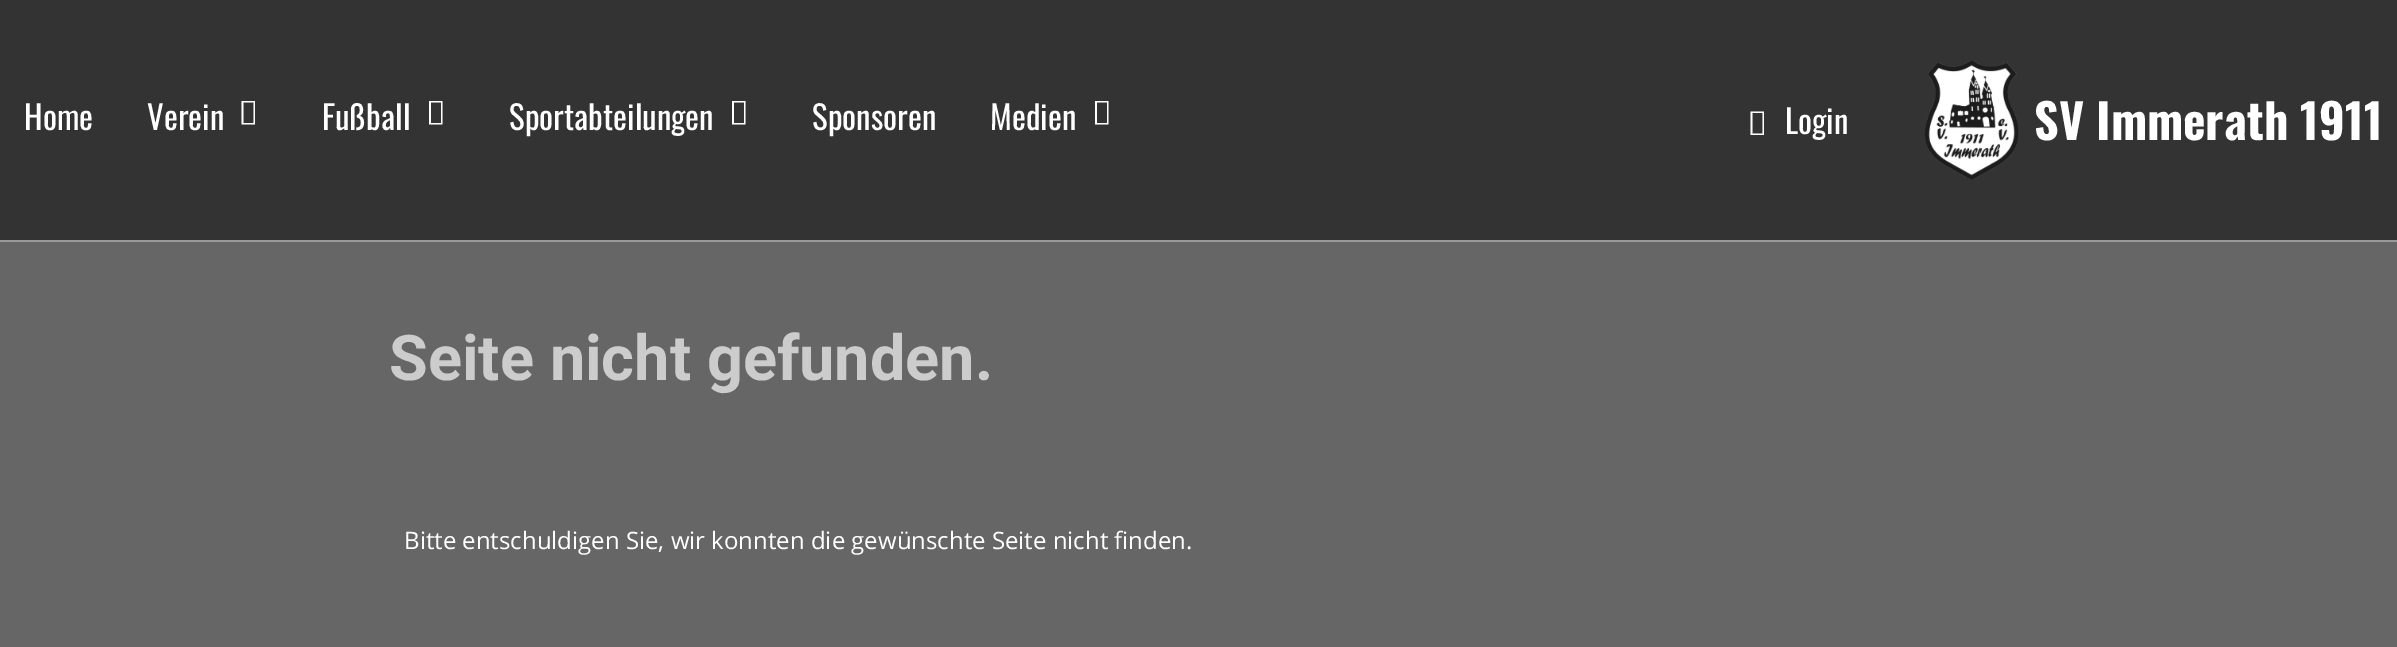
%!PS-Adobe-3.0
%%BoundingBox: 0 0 2397 647
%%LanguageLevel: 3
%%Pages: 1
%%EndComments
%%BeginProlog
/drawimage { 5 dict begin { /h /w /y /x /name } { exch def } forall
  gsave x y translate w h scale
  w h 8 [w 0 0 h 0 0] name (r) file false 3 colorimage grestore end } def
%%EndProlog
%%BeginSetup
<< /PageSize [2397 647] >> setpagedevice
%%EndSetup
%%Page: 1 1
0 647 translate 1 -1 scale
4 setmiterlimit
0.4 setgray
0 0 2397 647 rectfill
0.2 setgray
0 0 2397 240 rectfill
0.6 setgray
0 240 2397 2 rectfill
1 setgray
newpath 241.5 124.5 moveto 241.5 101 lineto 255 101 lineto 255 124.5 lineto closepath 243.5 123 moveto 253.5 123 lineto 253.5 102.5 lineto 243.5 102.5 lineto closepath fill
newpath 429 124.5 moveto 429 101 lineto 442.5 101 lineto 442.5 124.5 lineto closepath 431 123 moveto 441 123 lineto 441 102.5 lineto 431 102.5 lineto closepath fill
newpath 732 124.5 moveto 732 101 lineto 745.5 101 lineto 745.5 124.5 lineto closepath 734 123 moveto 744 123 lineto 744 102.5 lineto 734 102.5 lineto closepath fill
newpath 1095 124.5 moveto 1095 101 lineto 1108.5 101 lineto 1108.5 124.5 lineto closepath 1097 123 moveto 1107 123 lineto 1107 102.5 lineto 1097 102.5 lineto closepath fill
newpath 1750.5 135 moveto 1750.5 111.5 lineto 1764 111.5 lineto 1764 135 lineto closepath 1752.5 133.5 moveto 1762.5 133.5 lineto 1762.5 113 lineto 1752.5 113 lineto closepath fill
(images/1.raw) 1924 60 95 120 drawimage
/Oswald-Regular [33 0 0 -33 0 0] selectfont
24 130 moveto (Home) show
147 130 moveto (Verein) show
322 130 moveto (Fußball) show
509 130 moveto (Sportabteilungen) show
812 130 moveto (Sponsoren) show
990 130 moveto (Medien) show
1785 134 moveto (Login) show
/Oswald-Bold [48 0 0 -48 0 0] selectfont
2034 140 moveto (SV Immerath 1911) show
/Roboto-Bold [63 0 0 -63 0 0] selectfont
0.8 setgray
389 380 moveto (Seite nicht gefunden.) show
/OpenSans-Regular [24 0 0 -24 0 0] selectfont
1 setgray
404 549 moveto (Bitte entschuldigen Sie, wir konnten die gewünschte Seite nicht finden.) show
showpage
%%EOF
